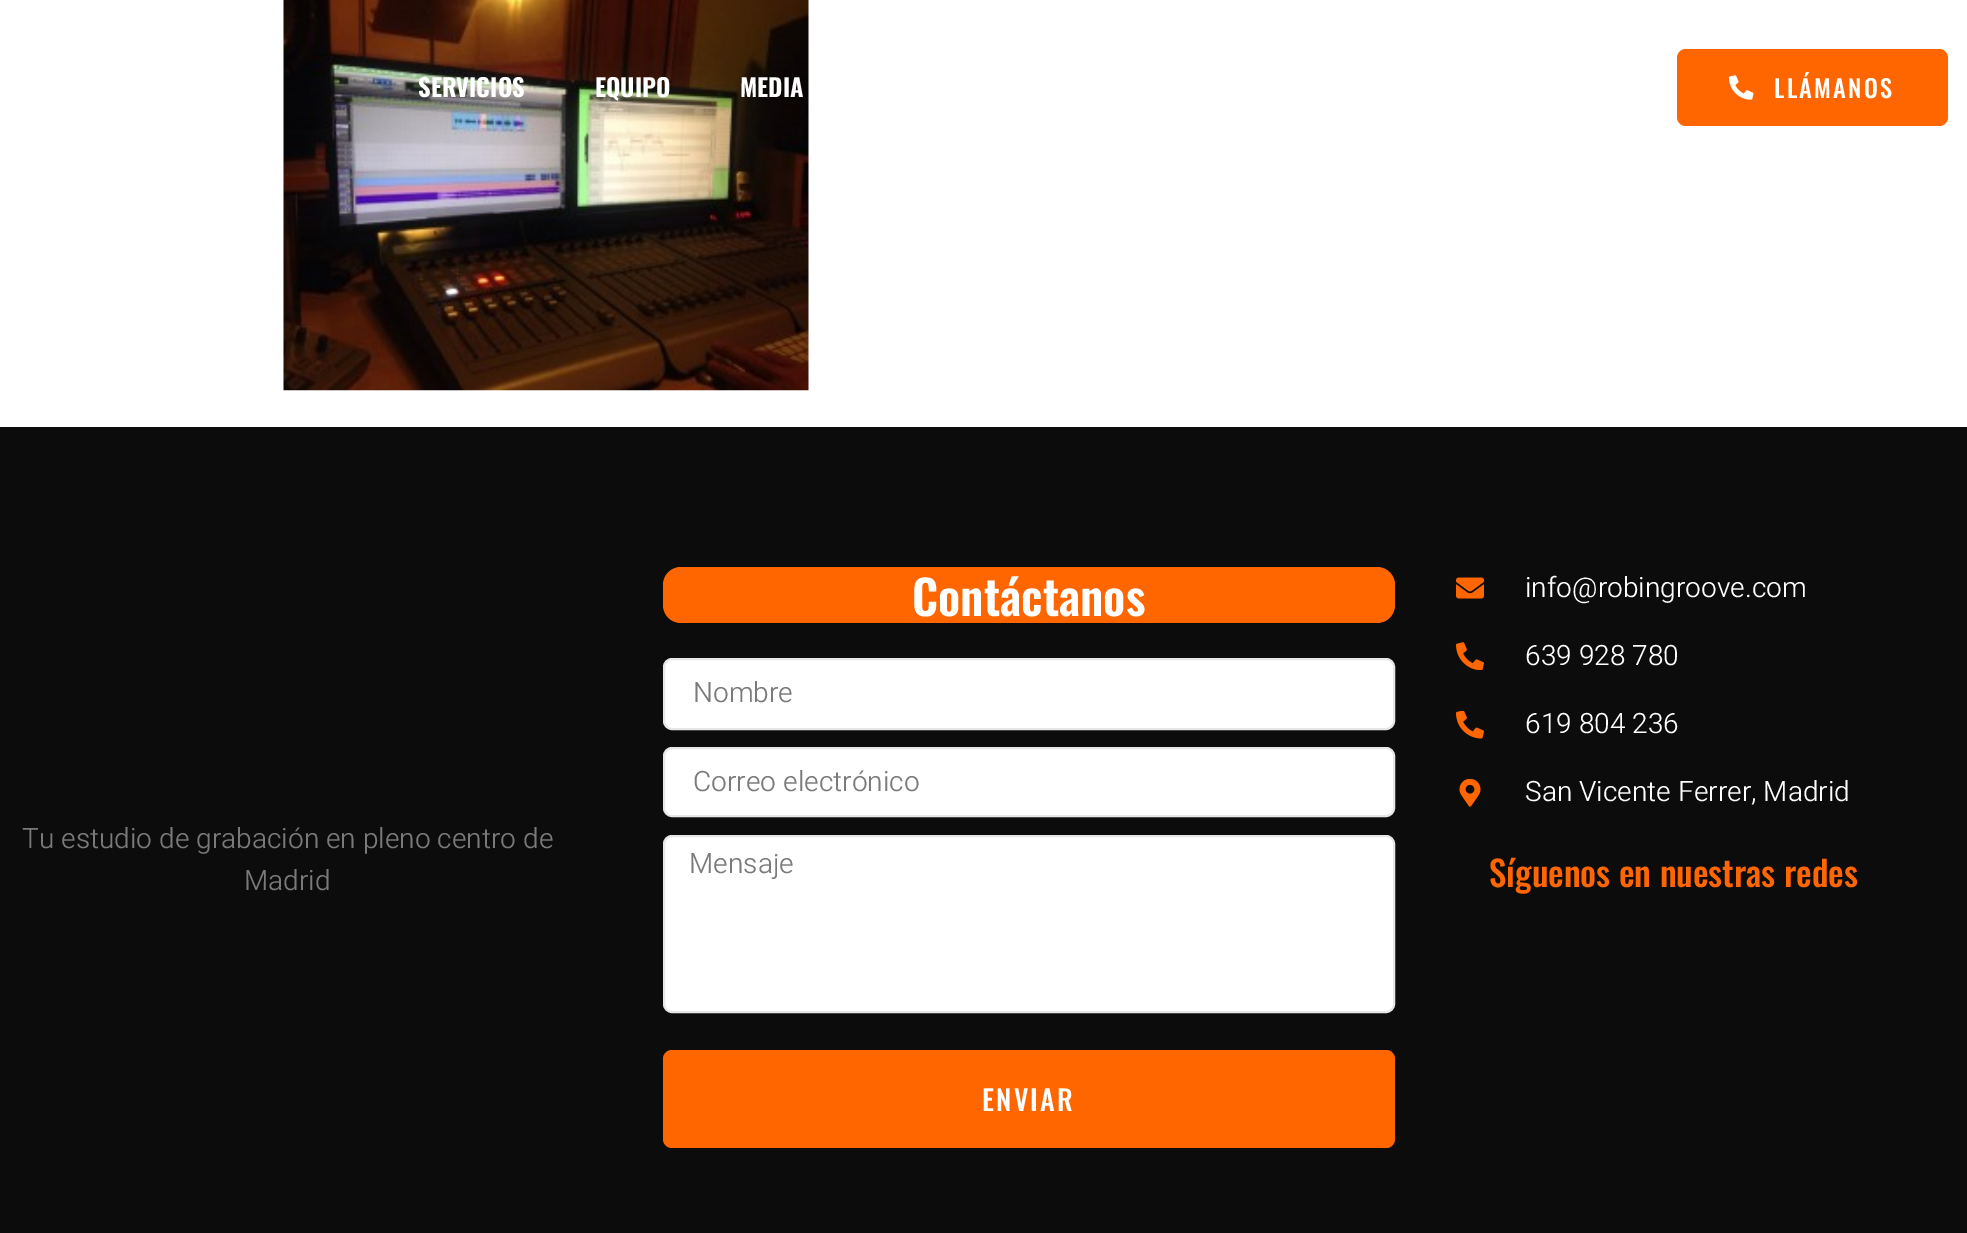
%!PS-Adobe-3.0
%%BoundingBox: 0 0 1967 1233
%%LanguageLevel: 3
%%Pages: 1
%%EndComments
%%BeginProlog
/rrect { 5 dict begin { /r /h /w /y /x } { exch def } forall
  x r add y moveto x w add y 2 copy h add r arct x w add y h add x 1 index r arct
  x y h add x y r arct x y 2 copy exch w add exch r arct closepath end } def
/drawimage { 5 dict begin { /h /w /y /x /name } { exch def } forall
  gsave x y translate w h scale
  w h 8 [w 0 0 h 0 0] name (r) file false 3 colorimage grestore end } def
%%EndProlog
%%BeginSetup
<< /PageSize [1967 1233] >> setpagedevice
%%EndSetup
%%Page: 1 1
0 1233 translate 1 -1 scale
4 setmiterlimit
1 setgray
0 0 1967 1233 rectfill
(images/1.raw) 283 0 526 391 drawimage
1 0.4 0 setrgbcolor
1677 49 271 77 9 rrect fill
(images/2.raw) 1729 75 25 25 drawimage
0.047 setgray
0 427 1967 806 rectfill
1 0.4 0 setrgbcolor
663 567 732 56 18 rrect fill
1 setgray
664 659 730 70 8 rrect gsave fill grestore
0.906 setgray
2 setlinewidth
stroke
1 setgray
664 748 730 68 8 rrect gsave fill grestore
0.906 setgray
stroke
1 setgray
664 836 730 176 8 rrect gsave fill grestore
0.906 setgray
stroke
1 0.4 0 setrgbcolor
663 1050 732 98 9 rrect fill
(images/3.raw) 1456 577 28 22 drawimage
(images/4.raw) 1456 642 28 28 drawimage
(images/5.raw) 1456 711 28 28 drawimage
(images/6.raw) 1459 779 22 28 drawimage
/Oswald-Bold [24.5 0 0 -24.5 0 0] selectfont
1 setgray
418 97 moveto (SERVICIOS) show
595 97 moveto (EQUIPO) show
740 97 moveto (MEDIA) show
/Oswald-Medium [24.5 0 0 -24.5 0 0] selectfont
1774 98 moveto 2.25 0 (LLÁMANOS) ashow
/Heebo-Light [28 0 0 -28 0 0] selectfont
0.478 setgray
22 848 moveto (Tu estudio de grabación en pleno centro de) show
244 890 moveto (Madrid) show
/Oswald-SemiBold [47.25 0 0 -47.25 0 0] selectfont
1 setgray
912 616 moveto (Contáctanos) show
/Heebo-Light [28 0 0 -28 0 0] selectfont
0.478 setgray
693 702 moveto (Nombre) show
693 791 moveto (Correo electrónico) show
689 873 moveto (Mensaje) show
/Oswald-Medium [28 0 0 -28 0 0] selectfont
1 setgray
982 1111 moveto 2.25 0 (ENVIAR) ashow
/Heebo-Light [28 0 0 -28 0 0] selectfont
1525 597 moveto (info@robingroove.com) show
1525 665 moveto (639 928 780) show
1525 733 moveto (619 804 236) show
1525 801 moveto (San Vicente Ferrer, Madrid) show
/Oswald-Medium [35 0 0 -35 0 0] selectfont
1 0.4 0 setrgbcolor
1489 887 moveto (Síguenos en nuestras redes) show
showpage
%%EOF
